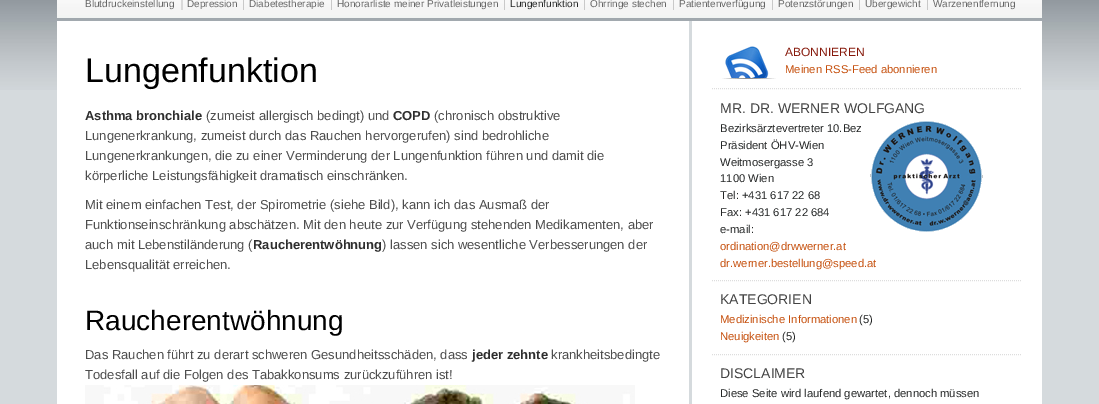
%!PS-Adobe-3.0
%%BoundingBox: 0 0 1099 404
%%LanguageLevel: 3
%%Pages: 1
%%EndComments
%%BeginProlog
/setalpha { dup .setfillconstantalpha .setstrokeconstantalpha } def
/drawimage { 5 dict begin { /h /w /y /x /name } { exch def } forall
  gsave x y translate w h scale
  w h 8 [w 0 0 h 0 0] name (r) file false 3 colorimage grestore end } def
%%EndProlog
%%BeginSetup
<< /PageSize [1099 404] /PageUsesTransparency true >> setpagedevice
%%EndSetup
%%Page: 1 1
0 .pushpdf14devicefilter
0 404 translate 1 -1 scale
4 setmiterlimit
0.835 0.855 0.867 setrgbcolor
0 0 1099 404 rectfill
(images/1.raw) 0 0 1099 90 drawimage
(images/2.raw) 57 0 985 18 drawimage
0.62 setalpha
0.784 setgray
181 0 2 10 rectfill
1 setalpha
0.788 setgray
243 0 1 10 rectfill
331 0 1 10 rectfill
504 0 1 10 rectfill
584 0 1 10 rectfill
673 0 1 10 rectfill
772 0 1 10 rectfill
859 0 1 10 rectfill
927 0 1 10 rectfill
1 setgray
57 21 985 383 rectfill
(images/3.raw) 85 385 550 19 drawimage
0.835 0.855 0.867 setrgbcolor
689 21 3 383 rectfill
0.867 setgray
[1 1] 0 setdash
newpath 712 88.5 moveto 1022 88.5 lineto stroke
(images/4.raw) 722 46 54 33 drawimage
newpath 712 280.5 moveto 1022 280.5 lineto stroke
(images/5.raw) 870 121 113 111 drawimage
newpath 712 354.5 moveto 1022 354.5 lineto stroke
/LiberationSans-Regular [10 0 0 -10 0 0] selectfont
0.4 setgray
85 7 moveto (Blutdruckeinstellung) show
187 7 moveto (Depression) show
249 7 moveto (Diabetestherapie) show
337 7 moveto (Honorarliste meiner Privatleistungen) show
0.141 0.149 0.149 setrgbcolor
510 7 moveto (Lungenfunktion) show
0.4 setgray
590 7 moveto (Ohrringe stechen) show
679 7 moveto (Patientenverfügung) show
778 7 moveto (Potenzstörungen) show
865 7 moveto (Übergewicht) show
933 7 moveto (Warzenentfernung) show
/LiberationSans-Regular [34 0 0 -34 0 0] selectfont
0 setgray
85 82 moveto (Lungenfunktion) show
/LiberationSans-Bold [13 0 0 -13 0 0] selectfont
0.18 setgray
85 120 moveto (Asthma bronchiale) show
/LiberationSans-Regular [13 0 0 -13 0 0] selectfont
0.302 setgray
206 120 moveto (\(zumeist allergisch bedingt\) und) show
/LiberationSans-Bold [13 0 0 -13 0 0] selectfont
0.18 setgray
393 120 moveto (COPD) show
/LiberationSans-Regular [13 0 0 -13 0 0] selectfont
0.302 setgray
434 120 moveto (\(chronisch obstruktive) show
85 140 moveto (Lungenerkrankung, zumeist durch das Rauchen hervorgerufen\) sind bedrohliche) show
85 160 moveto (Lungenerkrankungen, die zu einer Verminderung der Lungenfunktion führen und damit die) show
85 180 moveto (körperliche Leistungsfähigkeit dramatisch einschränken.) show
85 209 moveto (Mit einem einfachen Test, der Spirometrie \(siehe Bild\), kann ich das Ausmaß der) show
85 229 moveto (Funktionseinschränkung abschätzen. Mit den heute zur Verfügung stehenden Medikamenten, aber) show
85 249 moveto (auch mit Lebenstiländerung \() show
/LiberationSans-Bold [13 0 0 -13 0 0] selectfont
0.18 setgray
253 249 moveto (Raucherentwöhnung) show
/LiberationSans-Regular [13 0 0 -13 0 0] selectfont
0.302 setgray
382 249 moveto (\) lassen sich wesentliche Verbesserungen der) show
85 269 moveto (Lebensqualität erreichen.) show
/LiberationSans-Regular [28 0 0 -28 0 0] selectfont
0 setgray
85 330 moveto (Raucherentwöhnung) show
/LiberationSans-Regular [13 0 0 -13 0 0] selectfont
0.302 setgray
85 359 moveto (Das Rauchen führt zu derart schweren Gesundheitsschäden, dass) show
/LiberationSans-Bold [13 0 0 -13 0 0] selectfont
0.18 setgray
472 359 moveto (jeder zehnte) show
/LiberationSans-Regular [13 0 0 -13 0 0] selectfont
0.302 setgray
551 359 moveto (krankheitsbedingte) show
85 379 moveto (Todesfall auf die Folgen des Tabakkonsums zurückzuführen ist!) show
/LiberationSans-Regular [12 0 0 -12 0 0] selectfont
0.525 0.094 0.039 setrgbcolor
785 56 moveto (ABONNIEREN) show
/LiberationSans-Regular [11.25 0 0 -11.25 0 0] selectfont
0.773 0.306 0.043 setrgbcolor
785 73 moveto (Meinen RSS-Feed abonnieren) show
/LiberationSans-Regular [14 0 0 -14 0 0] selectfont
0.263 setgray
720 113 moveto (MR. DR. WERNER WOLFGANG) show
/LiberationSans-Regular [11.25 0 0 -11.25 0 0] selectfont
0.141 0.149 0.149 setrgbcolor
720 132 moveto (Bezirksärztevertreter 10.Bez) show
720 149 moveto (Präsident ÖHV-Wien) show
720 166 moveto (Weitmosergasse 3) show
720 182 moveto (1100 Wien) show
720 199 moveto (Tel: +431 617 22 68) show
720 216 moveto (Fax: +431 617 22 684) show
720 233 moveto (e-mail:) show
0.773 0.306 0.043 setrgbcolor
720 250 moveto (ordination@drwwerner.at) show
720 267 moveto (dr.werner.bestellung@speed.at) show
/LiberationSans-Regular [14 0 0 -14 0 0] selectfont
0.263 setgray
720 304 moveto (KATEGORIEN) show
/LiberationSans-Regular [11.25 0 0 -11.25 0 0] selectfont
0.773 0.306 0.043 setrgbcolor
720 323 moveto (Medizinische Informationen) show
0.141 0.149 0.149 setrgbcolor
859 323 moveto (\(5\)) show
0.773 0.306 0.043 setrgbcolor
720 340 moveto (Neuigkeiten) show
0.141 0.149 0.149 setrgbcolor
782 340 moveto (\(5\)) show
/LiberationSans-Regular [14 0 0 -14 0 0] selectfont
0.263 setgray
720 378 moveto (DISCLAIMER) show
/LiberationSans-Regular [11.25 0 0 -11.25 0 0] selectfont
0.141 0.149 0.149 setrgbcolor
720 397 moveto (Diese Seite wird laufend gewartet, dennoch müssen) show
.poppdf14devicefilter showpage
%%EOF
